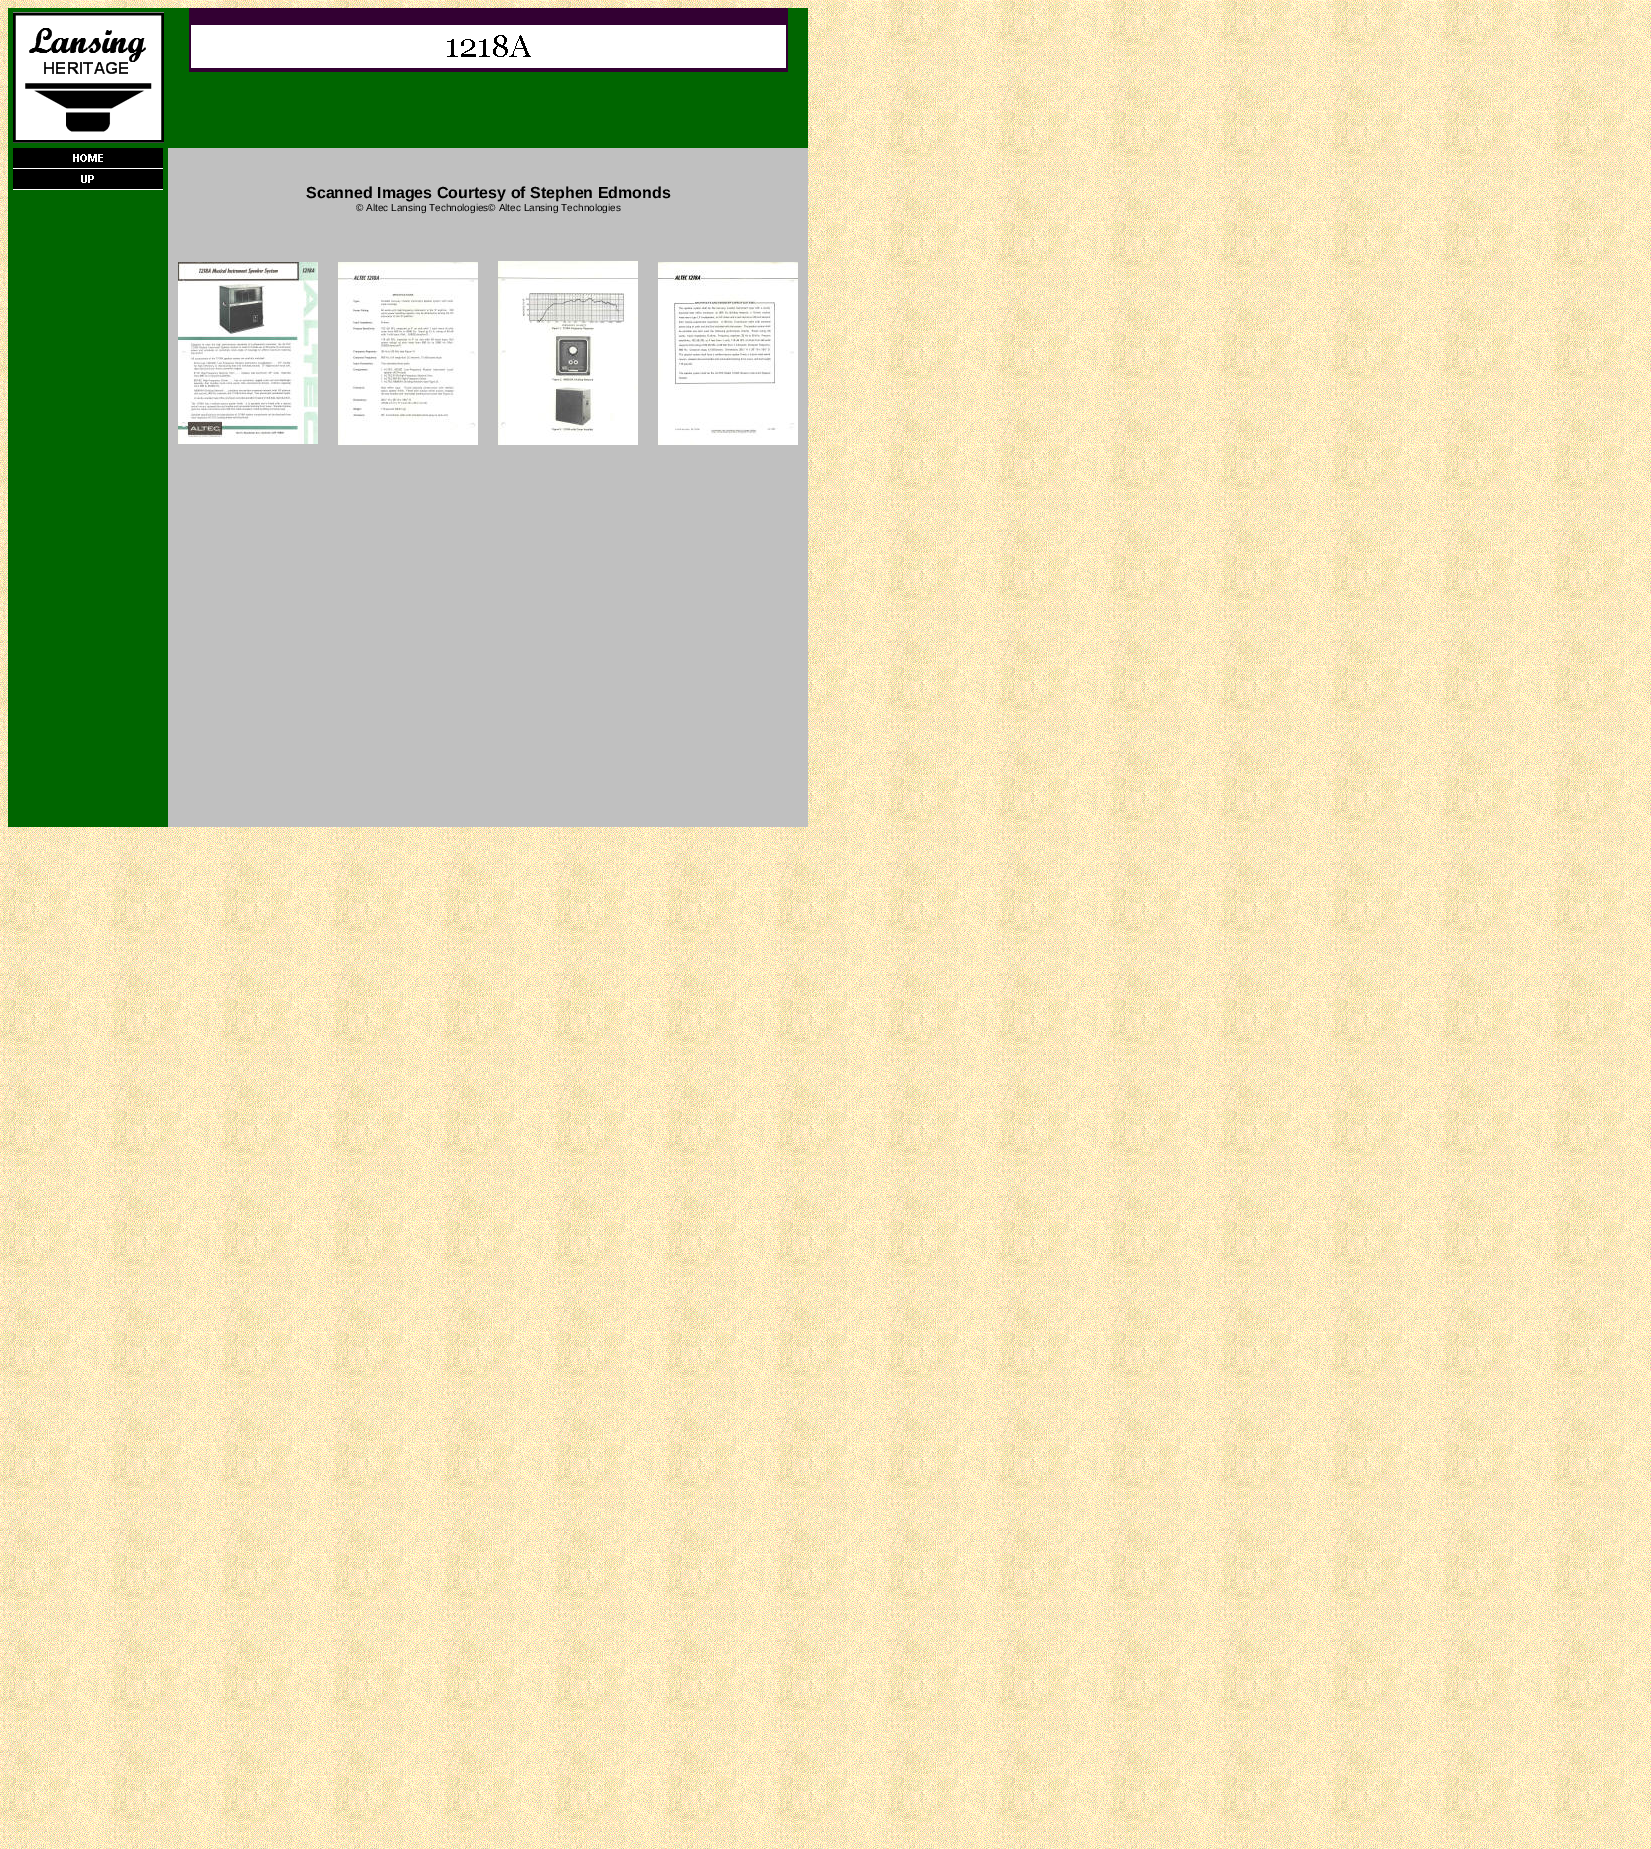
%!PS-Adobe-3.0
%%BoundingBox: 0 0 1651 1849
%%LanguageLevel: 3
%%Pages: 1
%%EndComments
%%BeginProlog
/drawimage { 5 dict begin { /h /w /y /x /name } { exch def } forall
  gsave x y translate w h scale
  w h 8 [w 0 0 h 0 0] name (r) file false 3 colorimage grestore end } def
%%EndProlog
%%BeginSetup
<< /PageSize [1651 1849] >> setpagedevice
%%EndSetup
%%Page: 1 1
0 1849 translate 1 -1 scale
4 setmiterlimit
1 setgray
0 0 1651 1849 rectfill
(images/1.raw) 0 0 1651 1849 drawimage
0 0.4 0 setrgbcolor
8 8 800 140 rectfill
(images/2.raw) 13 12 151 131 drawimage
(images/3.raw) 189 8 599 64 drawimage
8 148 160 679 rectfill
(images/4.raw) 13 148 150 21 drawimage
(images/5.raw) 13 169 150 21 drawimage
0.753 setgray
168 148 640 100 rectfill
168 248 640 210 rectfill
(images/6.raw) 178 262 140 182 drawimage
(images/7.raw) 338 262 140 183 drawimage
(images/8.raw) 498 261 140 184 drawimage
(images/9.raw) 658 262 140 183 drawimage
168 458 640 369 rectfill
/LiberationSans-Bold [16 0 0 -16 0 0] selectfont
0 setgray
306 198 moveto (Scanned Images Courtesy of Stephen Edmonds) show
/LiberationSans-Regular [10 0 0 -10 0 0] selectfont
356 211 moveto (© Altec Lansing Technologies© Altec Lansing Technologies) show
showpage
%%EOF
